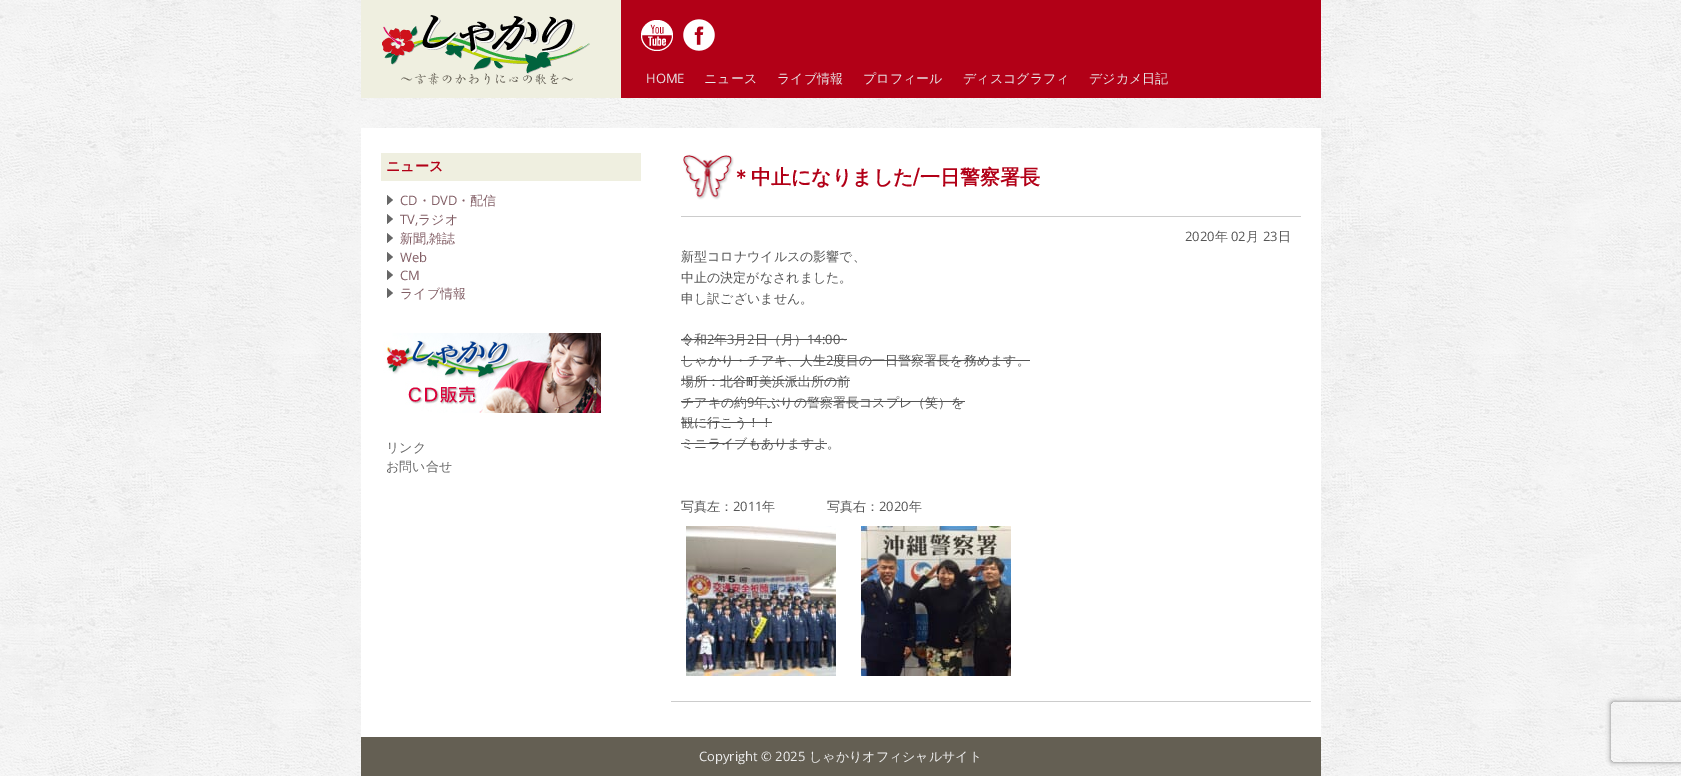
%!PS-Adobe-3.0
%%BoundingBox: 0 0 1681 776
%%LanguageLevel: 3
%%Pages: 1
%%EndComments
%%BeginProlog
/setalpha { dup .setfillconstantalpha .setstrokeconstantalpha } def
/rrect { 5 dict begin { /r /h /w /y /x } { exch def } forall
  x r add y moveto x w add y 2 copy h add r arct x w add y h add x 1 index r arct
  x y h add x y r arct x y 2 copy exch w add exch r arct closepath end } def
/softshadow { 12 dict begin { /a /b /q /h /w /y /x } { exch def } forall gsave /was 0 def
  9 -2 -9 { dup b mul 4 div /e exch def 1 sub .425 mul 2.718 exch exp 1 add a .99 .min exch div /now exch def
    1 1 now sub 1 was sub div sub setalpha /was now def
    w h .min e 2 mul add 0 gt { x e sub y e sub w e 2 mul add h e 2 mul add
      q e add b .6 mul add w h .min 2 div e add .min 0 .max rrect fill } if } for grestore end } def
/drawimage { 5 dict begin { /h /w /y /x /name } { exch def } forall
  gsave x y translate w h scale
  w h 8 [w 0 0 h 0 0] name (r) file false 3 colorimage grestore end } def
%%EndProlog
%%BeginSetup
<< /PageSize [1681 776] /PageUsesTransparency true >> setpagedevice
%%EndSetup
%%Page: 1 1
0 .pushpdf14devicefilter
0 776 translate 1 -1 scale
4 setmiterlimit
1 setgray
0 0 1681 776 rectfill
(images/1.raw) 0 0 1681 776 drawimage
0.937 0.937 0.878 setrgbcolor
361 0 260 98 rectfill
(images/2.raw) 382 15 208 70 drawimage
0.698 0 0.09 setrgbcolor
621 0 700 98 rectfill
(images/3.raw) 641 20 32 31 drawimage
(images/4.raw) 683 19 32 32 drawimage
1 setgray
361 128 960 609 rectfill
0.937 0.937 0.878 setrgbcolor
381 153 260 28 rectfill
(images/5.raw) 387 195 6 10 drawimage
(images/5.raw) 387 214 6 10 drawimage
(images/5.raw) 387 233 6 10 drawimage
(images/5.raw) 387 252 6 10 drawimage
(images/5.raw) 387 270 6 10 drawimage
(images/5.raw) 387 288 6 10 drawimage
(images/6.raw) 383 333 218 80 drawimage
0.8 setgray
671 701 640 1 rectfill
(images/7.raw) 683 154 51 46 drawimage
681 216 620 1 rectfill
0.333 setgray
681 339 166 1 rectfill
681 360 349 1 rectfill
681 380 169 1 rectfill
681 401 284 1 rectfill
681 422 91 1 rectfill
681 443 146 1 rectfill
(images/8.raw) 686 526 150 150 drawimage
(images/9.raw) 861 526 150 150 drawimage
0.392 0.373 0.325 setrgbcolor
361 737 960 39 rectfill
gsave
newpath 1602 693 moveto 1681 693 lineto 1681 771 lineto 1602 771 lineto closepath 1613 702 moveto 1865 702 lineto 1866 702 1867 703 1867 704 curveto 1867 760 lineto 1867 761 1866 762 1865 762 curveto 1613 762 lineto 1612 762 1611 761 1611 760 curveto 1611 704 lineto 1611 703 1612 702 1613 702 curveto closepath eoclip newpath
0.502 setgray
1611 702 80 60 2 2.5 1 softshadow
grestore
/OpenSans-Regular [13 0 0 -13 0 0] selectfont
0.906 setgray
646 83 moveto (HOME) show
/WenQuanYiZenHei-Medium [13 0 0 -13 0 0] selectfont
704 83 moveto (ニュース) show
777 83 moveto (ライブ情報) show
863 83 moveto (プロフィール) show
963 83 moveto (ディスコグラフィ) show
1089 83 moveto (デジカメ日記) show
/WenQuanYiZenHei-Bold [14 0 0 -14 0 0] selectfont
0.698 0 0.09 setrgbcolor
386 171 moveto (ニュース) show
/OpenSans-Regular [13 0 0 -13 0 0] selectfont
0.51 0.369 0.396 setrgbcolor
400 205 moveto (CD) show
/WenQuanYiZenHei-Medium [13 0 0 -13 0 0] selectfont
418 205 moveto (・) show
/OpenSans-Regular [13 0 0 -13 0 0] selectfont
431 205 moveto (DVD) show
/WenQuanYiZenHei-Medium [13 0 0 -13 0 0] selectfont
457 205 moveto (・配信) show
/OpenSans-Regular [13 0 0 -13 0 0] selectfont
400 224 moveto (TV,) show
/WenQuanYiZenHei-Medium [13 0 0 -13 0 0] selectfont
418 224 moveto (ラジオ) show
400 243 moveto (新聞) show
/OpenSans-Regular [13 0 0 -13 0 0] selectfont
426 243 moveto (,) show
/WenQuanYiZenHei-Medium [13 0 0 -13 0 0] selectfont
429 243 moveto (雑誌) show
/OpenSans-Regular [13 0 0 -13 0 0] selectfont
400 262 moveto (Web) show
400 280 moveto (CM) show
/WenQuanYiZenHei-Medium [13 0 0 -13 0 0] selectfont
400 298 moveto (ライブ情報) show
0.4 setgray
386 452 moveto (リンク) show
386 471 moveto (お問い合せ) show
/WenQuanYiZenHei-Bold [20 0 0 -20 0 0] selectfont
0.698 0 0.09 setrgbcolor
731 184 moveto (＊中止になりました) show
/Bitter-Bold [20 0 0 -20 0 0] selectfont
913 184 moveto (/) show
/WenQuanYiZenHei-Bold [20 0 0 -20 0 0] selectfont
920 184 moveto (一日警察署長) show
/OpenSans-Regular [13 0 0 -13 0 0] selectfont
0.333 setgray
1185 241 moveto (2020) show
/WenQuanYiZenHei-Medium [13 0 0 -13 0 0] selectfont
1215 241 moveto (年) show
/OpenSans-Regular [13 0 0 -13 0 0] selectfont
1231 241 moveto (02) show
/WenQuanYiZenHei-Medium [13 0 0 -13 0 0] selectfont
1246 241 moveto (月) show
/OpenSans-Regular [13 0 0 -13 0 0] selectfont
1263 241 moveto (23) show
/WenQuanYiZenHei-Medium [13 0 0 -13 0 0] selectfont
1278 241 moveto (日) show
681 261 moveto (新型コロナウイルスの影響で、) show
681 282 moveto (中止の決定がなされました。) show
681 303 moveto (申し訳ございません。) show
681 344 moveto (令和) show
/OpenSans-Regular [13 0 0 -13 0 0] selectfont
707 344 moveto (2) show
/WenQuanYiZenHei-Medium [13 0 0 -13 0 0] selectfont
714 344 moveto (年) show
/OpenSans-Regular [13 0 0 -13 0 0] selectfont
727 344 moveto (3) show
/WenQuanYiZenHei-Medium [13 0 0 -13 0 0] selectfont
734 344 moveto (月) show
/OpenSans-Regular [13 0 0 -13 0 0] selectfont
747 344 moveto (2) show
/WenQuanYiZenHei-Medium [13 0 0 -13 0 0] selectfont
755 344 moveto (日（月）) show
/OpenSans-Regular [13 0 0 -13 0 0] selectfont
807 344 moveto (14:00~) show
/WenQuanYiZenHei-Medium [13 0 0 -13 0 0] selectfont
681 365 moveto (しゃかり・チアキ、人生) show
/OpenSans-Regular [13 0 0 -13 0 0] selectfont
826 365 moveto (2) show
/WenQuanYiZenHei-Medium [13 0 0 -13 0 0] selectfont
833 365 moveto (度目の一日警察署長を務めます。) show
681 386 moveto (場所：北谷町美浜派出所の前) show
681 407 moveto (チアキの約) show
/OpenSans-Regular [13 0 0 -13 0 0] selectfont
747 407 moveto (9) show
/WenQuanYiZenHei-Medium [13 0 0 -13 0 0] selectfont
754 407 moveto (年ぶりの警察署長コスプレ（笑）を) show
681 427 moveto (観に行こう！！) show
681 448 moveto (ミニライブもありますよ。) show
681 511 moveto (写真左：) show
/OpenSans-Regular [13 0 0 -13 0 0] selectfont
733 511 moveto (2011) show
/WenQuanYiZenHei-Medium [13 0 0 -13 0 0] selectfont
762 511 moveto (年　　　　写真右：) show
/OpenSans-Regular [13 0 0 -13 0 0] selectfont
879 511 moveto (2020) show
/WenQuanYiZenHei-Medium [13 0 0 -13 0 0] selectfont
909 511 moveto (年) show
/OpenSans-Regular [13 0 0 -13 0 0] selectfont
0.933 setgray
699 761 moveto (Copyright © 2025) show
/WenQuanYiZenHei-Medium [13 0 0 -13 0 0] selectfont
809 761 moveto (しゃかりオフィシャルサイト) show
.poppdf14devicefilter showpage
%%EOF
